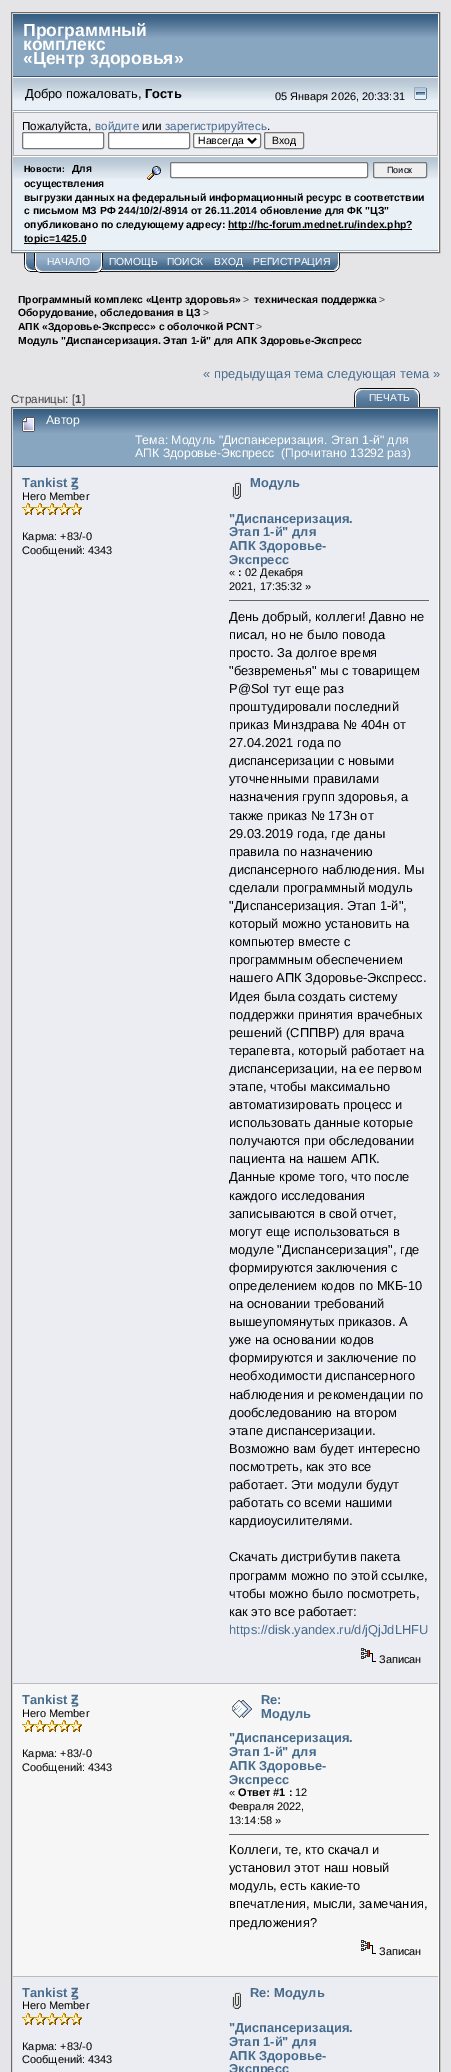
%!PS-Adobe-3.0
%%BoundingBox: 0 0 451 2072
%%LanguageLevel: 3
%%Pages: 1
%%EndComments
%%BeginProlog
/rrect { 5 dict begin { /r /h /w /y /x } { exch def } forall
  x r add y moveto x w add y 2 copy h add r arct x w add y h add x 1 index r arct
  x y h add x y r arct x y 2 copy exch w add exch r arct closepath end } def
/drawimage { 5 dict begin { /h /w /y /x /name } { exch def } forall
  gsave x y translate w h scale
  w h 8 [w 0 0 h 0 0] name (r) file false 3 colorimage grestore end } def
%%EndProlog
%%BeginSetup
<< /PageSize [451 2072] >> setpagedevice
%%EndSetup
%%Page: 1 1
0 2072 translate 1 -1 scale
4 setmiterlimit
0.898 0.898 0.91 setrgbcolor
0 0 451 2072 rectfill
1 setgray
newpath 11.5 12.5 moveto 439.5 12.5 lineto 439.5 252.5 lineto 11.5 252.5 lineto closepath gsave fill grestore
0.412 setgray
stroke
0.533 0.651 0.753 setrgbcolor
13 38 425 38 rectfill
(images/1.raw) 13 14 425 24 drawimage
0.216 0.333 0.463 setrgbcolor
13 76 425 1 rectfill
0.914 0.941 0.965 setrgbcolor
13 100 425 10 rectfill
(images/2.raw) 13 78 425 22 drawimage
0.608 0.682 0.749 setrgbcolor
13 110 425 1 rectfill
(images/3.raw) 414 87 13 13 drawimage
0.678 setgray
13 112 425 44 rectfill
0.925 0.929 0.953 setrgbcolor
14 113 423 42 rectfill
1 setgray
193.5 133.5 67 14 1.5 rrect gsave fill grestore
0.463 setgray
stroke
0 setgray
2 setlinewidth
newpath 248 138.5 moveto 252 142.5 lineto 256 138.5 lineto stroke
0.914 0.941 0.965 setrgbcolor
13 179 425 71 rectfill
(images/2.raw) 13 157 425 22 drawimage
0.608 0.682 0.749 setrgbcolor
13 250 425 1 rectfill
0 setgray
228 229 184 1 rectfill
24 243 62 1 rectfill
(images/4.raw) 147 166 14 14 drawimage
1 setgray
170.5 162.5 197 15 1.5 rrect gsave fill grestore
0.463 setgray
1 setlinewidth
stroke
0.937 setgray
373.5 162.5 53 15 1.5 rrect gsave fill grestore
0.463 setgray
stroke
(images/5.raw) 24 253 10 19 drawimage
(images/6.raw) 95 253 8 20 drawimage
(images/7.raw) 34 253 8 20 drawimage
(images/8.raw) 42 253 53 20 drawimage
(images/9.raw) 103 253 59 20 drawimage
(images/10.raw) 162 253 47 20 drawimage
(images/11.raw) 209 253 39 20 drawimage
(images/12.raw) 248 253 92 19 drawimage
(images/13.raw) 354 388 40 19 drawimage
(images/14.raw) 364 388 56 19 drawimage
1 setgray
newpath 11.5 407.5 moveto 439.5 407.5 lineto 439.5 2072.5 lineto 11.5 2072.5 lineto closepath gsave fill grestore
0.412 setgray
stroke
0.533 0.651 0.753 setrgbcolor
13 433 425 33 rectfill
(images/1.raw) 13 409 425 24 drawimage
0.216 0.333 0.463 setrgbcolor
13 466 425 1 rectfill
(images/15.raw) 22 417 13 15 drawimage
0.925 0.929 0.953 setrgbcolor
13 467 425 1216 rectfill
(images/16.raw) 22 503 12 12 drawimage
(images/16.raw) 34 503 12 12 drawimage
(images/16.raw) 46 503 12 12 drawimage
(images/16.raw) 58 503 12 12 drawimage
(images/16.raw) 70 503 12 12 drawimage
(images/17.raw) 232 482 9 17 drawimage
0.4 setgray
229 600 200 1 rectfill
(images/18.raw) 361 1648 15 14 drawimage
0.965 setgray
13 1684 425 292 rectfill
0.733 setgray
13 1683 425 1 rectfill
(images/19.raw) 22 1720 12 12 drawimage
(images/19.raw) 34 1720 12 12 drawimage
(images/19.raw) 46 1720 12 12 drawimage
(images/19.raw) 58 1720 12 12 drawimage
(images/19.raw) 70 1720 12 12 drawimage
(images/20.raw) 232 1700 20 18 drawimage
0.4 setgray
229 1834 200 1 rectfill
(images/21.raw) 361 1940 15 14 drawimage
0.925 0.929 0.953 setrgbcolor
13 1977 425 95 rectfill
0.733 setgray
13 1976 425 1 rectfill
(images/16.raw) 22 2013 12 12 drawimage
(images/16.raw) 34 2013 12 12 drawimage
(images/16.raw) 46 2013 12 12 drawimage
(images/16.raw) 58 2013 12 12 drawimage
(images/16.raw) 70 2013 12 12 drawimage
(images/17.raw) 232 1992 9 17 drawimage
/LiberationSans-Bold [17.5 0 0 -17.5 0 0] selectfont
1 setgray
23 36 moveto (Программный) show
23 50 moveto (комплекс) show
23 64 moveto («Центр здоровья») show
/LiberationSans-Regular [12.9 0 0 -12.9 0 0] selectfont
0 setgray
25 98 moveto (Добро пожаловать,) show
/LiberationSans-Bold [12.9 0 0 -12.9 0 0] selectfont
145 98 moveto (Гость) show
/LiberationSans-Regular [11 0 0 -11 0 0] selectfont
275 100 moveto (05 Января 2026, 20:33:31) show
/LiberationSans-Regular [11.6 0 0 -11.6 0 0] selectfont
22 130 moveto (Пожалуйста,) show
0.278 0.424 0.557 setrgbcolor
95 130 moveto (войдите) show
0 setgray
142 130 moveto (или) show
0.278 0.424 0.557 setrgbcolor
165 130 moveto (зарегистрируйтесь) show
0 setgray
267 130 moveto (.) show
1 setgray
22.5 132.5 81 16 1.5 rrect gsave fill grestore
0.463 setgray
stroke
1 setgray
108.5 132.5 81 16 1.5 rrect gsave fill grestore
0.463 setgray
stroke
/LiberationSans-Regular [10.5 0 0 -10.5 0 0] selectfont
0 setgray
198 144 moveto (Навсегда) show
0.937 setgray
264.5 132.5 39 16 1.5 rrect gsave fill grestore
0.463 setgray
stroke
0 setgray
272 144 moveto (Вход) show
/LiberationSans-Bold [9 0 0 -9 0 0] selectfont
24 172 moveto (Новости:) show
/LiberationSans-Bold [10.35 0 0 -10.35 0 0] selectfont
72 172 moveto (Для) show
24 187 moveto (осуществления) show
24 201 moveto (выгрузки данных на федеральный информационный ресурс в соответствии) show
24 214 moveto (с письмом МЗ РФ 244/10/2/-8914 от 26.11.2014 обновление для ФК "ЦЗ") show
24 228 moveto (опубликовано по следующему адресу:) show
228 228 moveto (http://hc-forum.mednet.ru/index.php?) show
24 242 moveto (topic=1425.0) show
/LiberationSans-Regular [9 0 0 -9 0 0] selectfont
387 173 moveto (Поиск) show
/LiberationSans-Regular [10.35 0 0 -10.35 0 0] selectfont
1 setgray
47 265 moveto (НАЧАЛО) show
109 265 moveto (ПОМОЩЬ) show
167 265 moveto (ПОИСК) show
214 265 moveto (ВХОД) show
253 265 moveto (РЕГИСТРАЦИЯ) show
/LiberationSans-Bold [10.35 0 0 -10.35 0 0] selectfont
0 setgray
18 303 moveto (Программный комплекс «Центр здоровья») show
/LiberationSans-Regular [10.35 0 0 -10.35 0 0] selectfont
0.267 setgray
243 303 moveto (>) show
/LiberationSans-Bold [10.35 0 0 -10.35 0 0] selectfont
0 setgray
254 303 moveto (техническая поддержка) show
/LiberationSans-Regular [10.35 0 0 -10.35 0 0] selectfont
0.267 setgray
379 303 moveto (>) show
/LiberationSans-Bold [10.35 0 0 -10.35 0 0] selectfont
0 setgray
18 316 moveto (Оборудование, обследования в ЦЗ) show
/LiberationSans-Regular [10.35 0 0 -10.35 0 0] selectfont
0.267 setgray
203 316 moveto (>) show
/LiberationSans-Bold [10.35 0 0 -10.35 0 0] selectfont
0 setgray
18 330 moveto (АПК «Здоровье-Экспресс» с оболочкой PCNT) show
/LiberationSans-Regular [10.35 0 0 -10.35 0 0] selectfont
0.267 setgray
256 330 moveto (>) show
/LiberationSans-Bold [10.35 0 0 -10.35 0 0] selectfont
0 setgray
18 344 moveto (Модуль "Диспансеризация. Этап 1-й" для АПК Здоровье-Экспресс) show
/LiberationSans-Regular [12.9 0 0 -12.9 0 0] selectfont
0.278 0.424 0.557 setrgbcolor
203 378 moveto (« предыдущая тема следующая тема ») show
/LiberationSans-Regular [11.6 0 0 -11.6 0 0] selectfont
0.267 setgray
11 403 moveto (Страницы: [) show
/LiberationSans-Bold [11.6 0 0 -11.6 0 0] selectfont
75 403 moveto (1) show
/LiberationSans-Regular [11.6 0 0 -11.6 0 0] selectfont
82 403 moveto (]) show
/LiberationSans-Regular [10.35 0 0 -10.35 0 0] selectfont
1 setgray
369 401 moveto (ПЕЧАТЬ) show
/LiberationSans-Regular [12.25 0 0 -12.25 0 0] selectfont
46 424 moveto (Автор) show
135 444 moveto (Тема: Модуль "Диспансеризация. Этап 1-й" для) show
135 457 moveto (АПК Здоровье-Экспресс  \(Прочитано 13292 раз\)) show
/LiberationSans-Bold [12.9 0 0 -12.9 0 0] selectfont
0.278 0.424 0.557 setrgbcolor
22 487 moveto (Tankist) show
/NotoSans-Bold [12.9 0 0 -12.9 0 0] selectfont
71 487 moveto (Ꙃ) show
/LiberationSans-Regular [11 0 0 -11 0 0] selectfont
0 setgray
22 500 moveto (Hero Member) show
22 540 moveto (Карма: +83/-0) show
22 554 moveto (Сообщений: 4343) show
/LiberationSans-Bold [12.9 0 0 -12.9 0 0] selectfont
0.278 0.424 0.557 setrgbcolor
250 487 moveto (Модуль) show
229 523 moveto ("Диспансеризация.) show
229 536 moveto (Этап 1-й" для) show
229 550 moveto (АПК Здоровье-) show
229 564 moveto (Экспресс) show
/LiberationSans-Regular [11 0 0 -11 0 0] selectfont
0 setgray
229 576 moveto («) show
/LiberationSans-Bold [11 0 0 -11 0 0] selectfont
238 576 moveto (:) show
/LiberationSans-Regular [11 0 0 -11 0 0] selectfont
245 576 moveto (02 Декабря) show
229 590 moveto (2021, 17:35:32 ») show
/LiberationSans-Regular [12.9 0 0 -12.9 0 0] selectfont
229 621 moveto (День добрый, коллеги! Давно не) show
229 639 moveto (писал, но не было повода) show
229 657 moveto (просто. За долгое время) show
229 675 moveto ("безвременья" мы с товарищем) show
229 693 moveto (P@Sol тут еще раз) show
229 711 moveto (проштудировали последний) show
229 729 moveto (приказ Минздрава № 404н от) show
229 747 moveto (27.04.2021 года по) show
229 765 moveto (диспансеризации с новыми) show
229 783 moveto (уточненными правилами) show
229 801 moveto (назначения групп здоровья, а) show
229 820 moveto (также приказ № 173н от) show
229 838 moveto (29.03.2019 года, где даны) show
229 856 moveto (правила по назначению) show
229 874 moveto (диспансерного наблюдения. Мы) show
229 892 moveto (сделали программный модуль) show
229 910 moveto ("Диспансеризация. Этап 1-й",) show
229 928 moveto (который можно установить на) show
229 946 moveto (компьютер вместе с) show
229 964 moveto (программным обеспечением) show
229 982 moveto (нашего АПК Здоровье-Экспресс.) show
229 1001 moveto (Идея была создать систему) show
229 1019 moveto (поддержки принятия врачебных) show
229 1037 moveto (решений \(СППВР\) для врача) show
229 1055 moveto (терапевта, который работает на) show
229 1073 moveto (диспансеризации, на ее первом) show
229 1091 moveto (этапе, чтобы максимально) show
229 1109 moveto (автоматизировать процесс и) show
229 1127 moveto (использовать данные которые) show
229 1145 moveto (получаются при обследовании) show
229 1163 moveto (пациента на нашем АПК.) show
229 1181 moveto (Данные кроме того, что после) show
229 1200 moveto (каждого исследования) show
229 1218 moveto (записываются в свой отчет,) show
229 1236 moveto (могут еще использоваться в) show
229 1254 moveto (модуле "Диспансеризация", где) show
229 1272 moveto (формируются заключения с) show
229 1290 moveto (определением кодов по МКБ-10) show
229 1308 moveto (на основании требований) show
229 1326 moveto (вышеупомянутых приказов. А) show
229 1344 moveto (уже на основании кодов) show
229 1362 moveto (формируются и заключение по) show
229 1380 moveto (необходимости диспансерного) show
229 1399 moveto (наблюдения и рекомендации по) show
229 1417 moveto (дообследованию на втором) show
229 1435 moveto (этапе диспансеризации.) show
229 1453 moveto (Возможно вам будет интересно) show
229 1471 moveto (посмотреть, как это все) show
229 1489 moveto (работает. Эти модули будут) show
229 1507 moveto (работать со всеми нашими) show
229 1525 moveto (кардиоусилителями.) show
229 1561 moveto (Скачать дистрибутив пакета) show
229 1580 moveto (программ можно по этой ссылке,) show
229 1598 moveto (чтобы можно было посмотреть,) show
229 1616 moveto (как это все работает:) show
0.278 0.424 0.557 setrgbcolor
229 1634 moveto (https://disk.yandex.ru/d/jQjJdLHFU) show
/LiberationSans-Regular [11 0 0 -11 0 0] selectfont
0 setgray
379 1663 moveto (Записан) show
/LiberationSans-Bold [12.9 0 0 -12.9 0 0] selectfont
0.278 0.424 0.557 setrgbcolor
22 1704 moveto (Tankist) show
/NotoSans-Bold [12.9 0 0 -12.9 0 0] selectfont
71 1704 moveto (Ꙃ) show
/LiberationSans-Regular [11 0 0 -11 0 0] selectfont
0 setgray
22 1717 moveto (Hero Member) show
22 1757 moveto (Карма: +83/-0) show
22 1771 moveto (Сообщений: 4343) show
/LiberationSans-Bold [12.9 0 0 -12.9 0 0] selectfont
0.278 0.424 0.557 setrgbcolor
261 1704 moveto (Re:) show
261 1718 moveto (Модуль) show
229 1742 moveto ("Диспансеризация.) show
229 1756 moveto (Этап 1-й" для) show
229 1770 moveto (АПК Здоровье-) show
229 1784 moveto (Экспресс) show
/LiberationSans-Regular [11 0 0 -11 0 0] selectfont
0 setgray
229 1796 moveto («) show
/LiberationSans-Bold [11 0 0 -11 0 0] selectfont
238 1796 moveto (Ответ #1 :) show
/LiberationSans-Regular [11 0 0 -11 0 0] selectfont
295 1796 moveto (12) show
229 1810 moveto (Февраля 2022,) show
229 1824 moveto (13:14:58 ») show
/LiberationSans-Regular [12.9 0 0 -12.9 0 0] selectfont
229 1854 moveto (Коллеги, те, кто скачал и) show
229 1872 moveto (установил этот наш новый) show
229 1890 moveto (модуль, есть какие-то) show
229 1908 moveto (впечатления, мысли, замечания,) show
229 1927 moveto (предложения?) show
/LiberationSans-Regular [11 0 0 -11 0 0] selectfont
379 1955 moveto (Записан) show
/LiberationSans-Bold [12.9 0 0 -12.9 0 0] selectfont
0.278 0.424 0.557 setrgbcolor
22 1997 moveto (Tankist) show
/NotoSans-Bold [12.9 0 0 -12.9 0 0] selectfont
71 1997 moveto (Ꙃ) show
/LiberationSans-Regular [11 0 0 -11 0 0] selectfont
0 setgray
22 2009 moveto (Hero Member) show
22 2050 moveto (Карма: +83/-0) show
22 2063 moveto (Сообщений: 4343) show
/LiberationSans-Bold [12.9 0 0 -12.9 0 0] selectfont
0.278 0.424 0.557 setrgbcolor
250 1997 moveto (Re: Модуль) show
229 2032 moveto ("Диспансеризация.) show
229 2046 moveto (Этап 1-й" для) show
229 2060 moveto (АПК Здоровье-) show
229 2073 moveto (Экспресс) show
showpage
%%EOF
